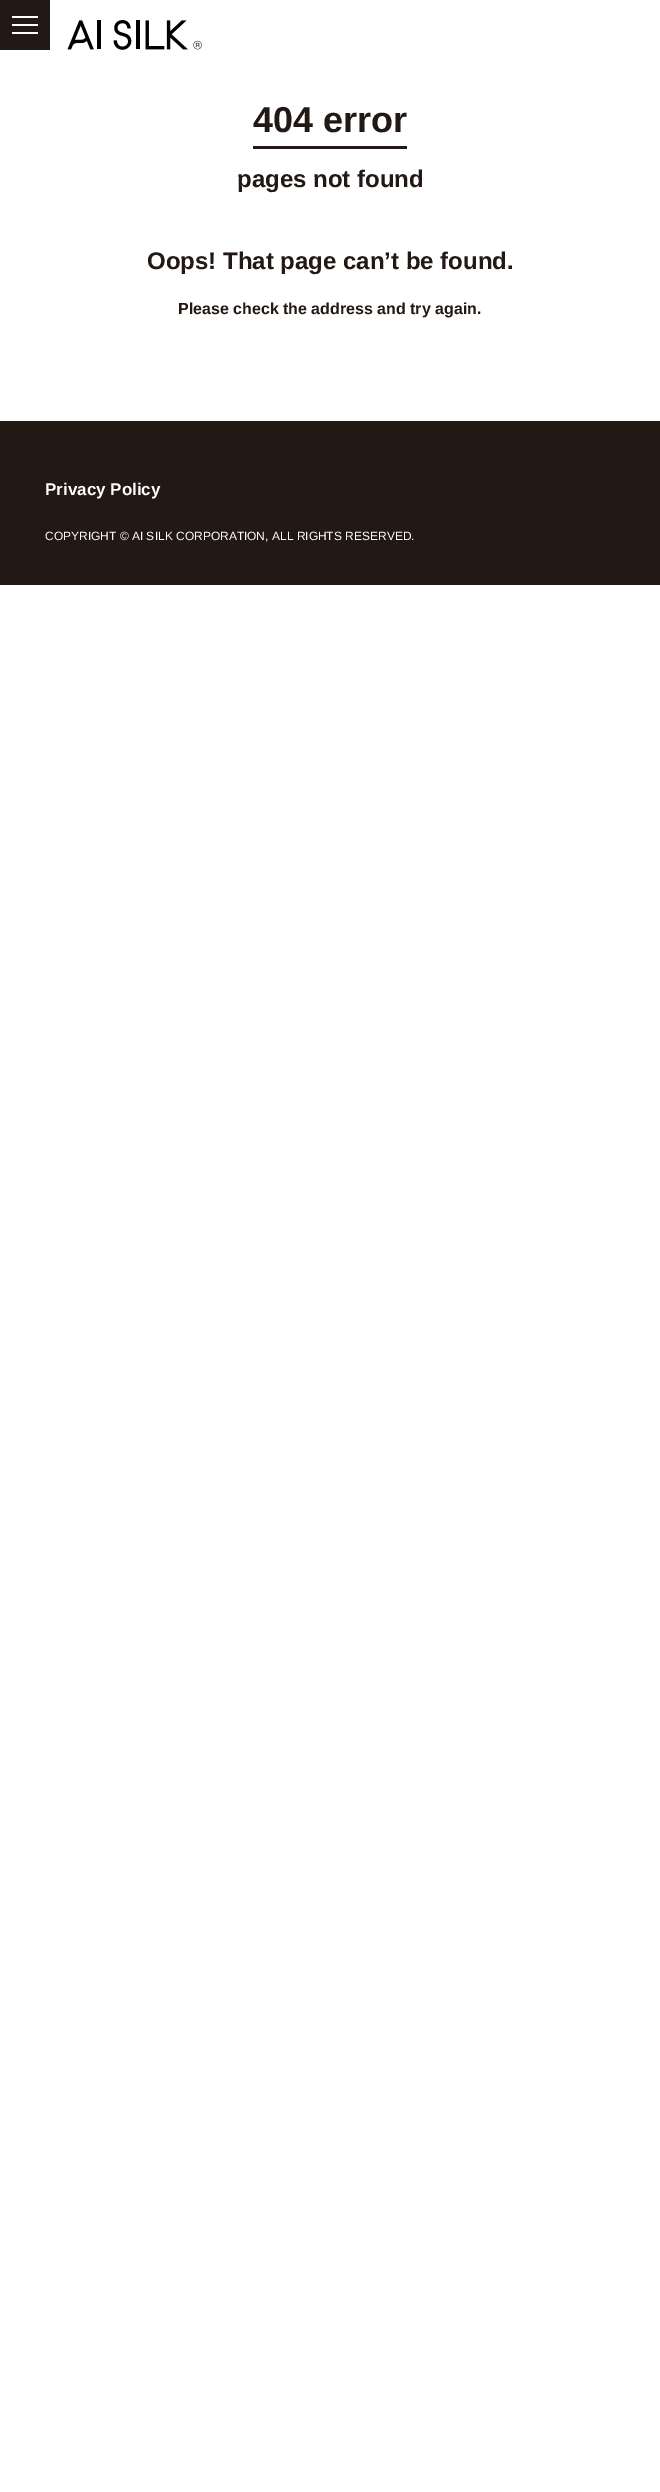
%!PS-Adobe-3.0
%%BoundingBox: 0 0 660 2492
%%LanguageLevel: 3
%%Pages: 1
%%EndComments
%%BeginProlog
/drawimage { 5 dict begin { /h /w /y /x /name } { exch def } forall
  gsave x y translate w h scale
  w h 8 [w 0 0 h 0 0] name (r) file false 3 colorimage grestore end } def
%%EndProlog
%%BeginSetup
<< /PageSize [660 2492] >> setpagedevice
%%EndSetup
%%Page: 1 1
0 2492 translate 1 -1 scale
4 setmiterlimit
1 setgray
0 0 660 2492 rectfill
0.133 0.094 0.078 setrgbcolor
0 0 50 50 rectfill
1 setgray
12 16 26 2 rectfill
12 24 26 2 rectfill
12 32 26 2 rectfill
(images/1.raw) 67 20 135 30 drawimage
0.133 0.094 0.078 setrgbcolor
253 146 154 3 rectfill
0 421 660 164 rectfill
/LiberationSans-Bold [36 0 0 -36 0 0] selectfont
253 132 moveto (404 error) show
/LiberationSans-Bold [24 0 0 -24 0 0] selectfont
237 187 moveto (pages not found) show
147 269 moveto (Oops! That page can’t be found.) show
/LiberationSans-Bold [16 0 0 -16 0 0] selectfont
178 314 moveto (Please check the address and try again.) show
/LiberationSans-Bold [17 0 0 -17 0 0] selectfont
1 setgray
45 495 moveto (Privacy Policy) show
/LiberationSans-Regular [12 0 0 -12 0 0] selectfont
45 540 moveto (COPYRIGHT © AI SILK CORPORATION, ALL RIGHTS RESERVED.) show
showpage
%%EOF
